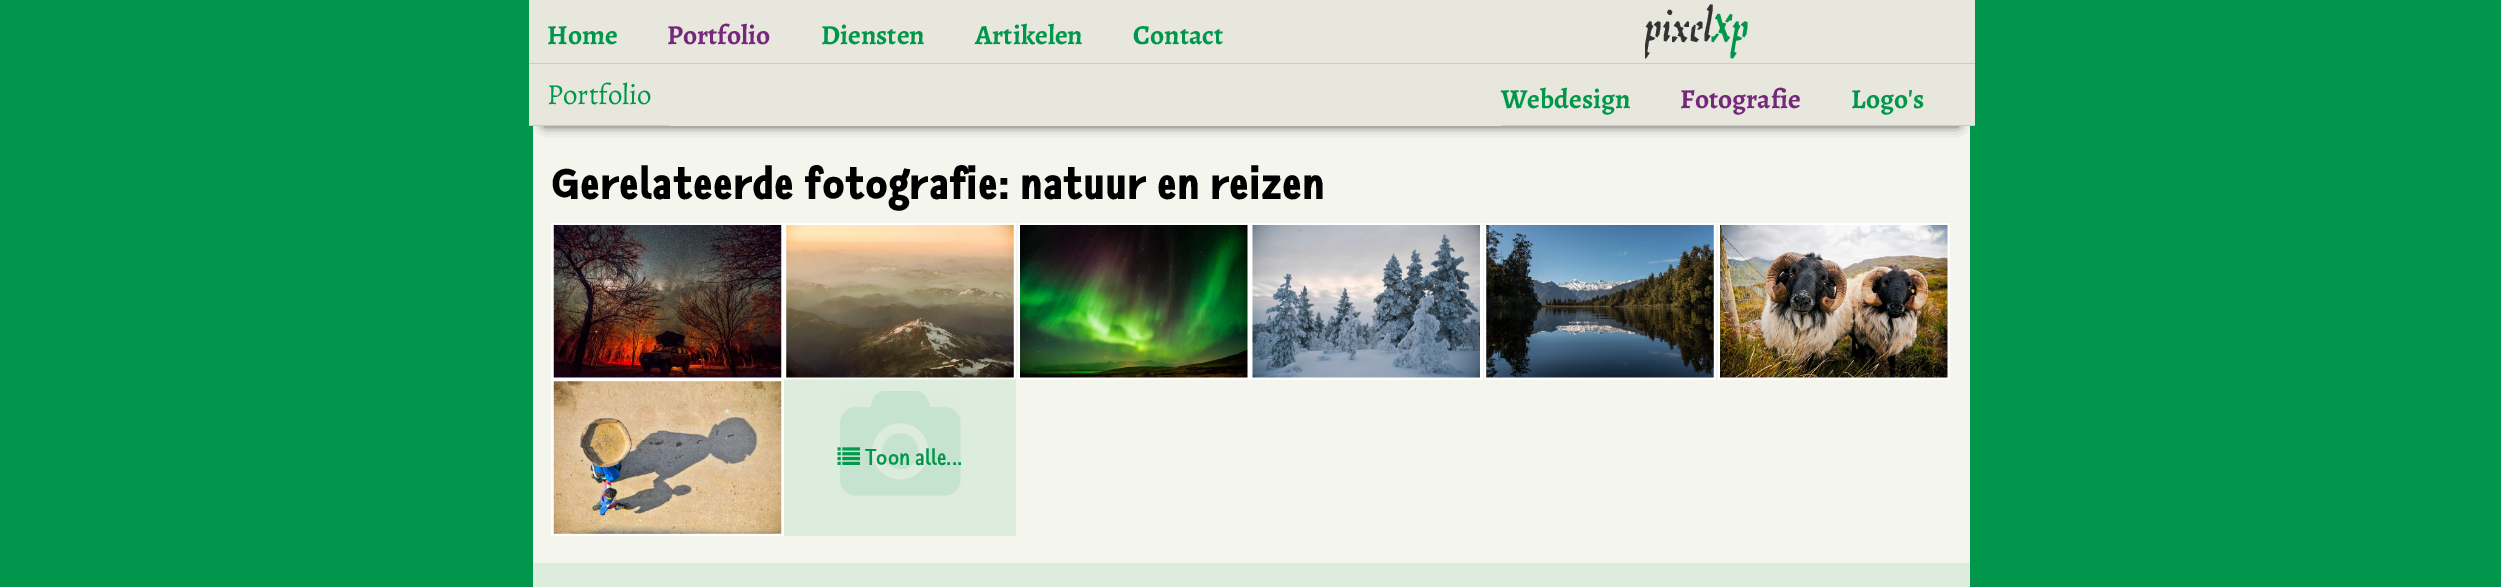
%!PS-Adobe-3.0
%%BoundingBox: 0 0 2501 587
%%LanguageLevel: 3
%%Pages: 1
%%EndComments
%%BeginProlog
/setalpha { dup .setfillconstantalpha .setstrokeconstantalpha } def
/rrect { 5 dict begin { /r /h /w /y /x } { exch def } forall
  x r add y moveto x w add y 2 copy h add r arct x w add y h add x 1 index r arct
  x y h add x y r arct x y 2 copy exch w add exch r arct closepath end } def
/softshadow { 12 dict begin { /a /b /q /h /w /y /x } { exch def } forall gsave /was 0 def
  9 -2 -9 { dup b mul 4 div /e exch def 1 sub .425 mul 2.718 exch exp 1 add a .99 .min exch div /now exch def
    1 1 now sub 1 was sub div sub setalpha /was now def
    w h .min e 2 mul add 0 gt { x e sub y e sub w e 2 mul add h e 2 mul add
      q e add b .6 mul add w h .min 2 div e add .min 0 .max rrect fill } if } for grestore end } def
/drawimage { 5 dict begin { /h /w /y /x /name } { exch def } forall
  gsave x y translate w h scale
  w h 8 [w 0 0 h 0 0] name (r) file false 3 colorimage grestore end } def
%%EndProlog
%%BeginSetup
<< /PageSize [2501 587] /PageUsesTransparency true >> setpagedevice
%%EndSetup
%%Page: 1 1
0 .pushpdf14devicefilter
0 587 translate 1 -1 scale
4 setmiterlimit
0 0.588 0.294 setrgbcolor
0 0 2501 587 rectfill
0.906 0.906 0.867 setrgbcolor
529 0 1446 63 rectfill
0.812 0.812 0.706 setrgbcolor
529 63 1446 1 rectfill
0.957 0.961 0.929 setrgbcolor
533 126 1437 437 rectfill
0 setgray
545 86 1413 38 0 6 1 softshadow
0.906 0.906 0.867 setrgbcolor
670 64 831 62 rectfill
529 64 141 61 rectfill
0.812 0.812 0.706 setrgbcolor
529 125 141 1 rectfill
0.906 0.906 0.867 setrgbcolor
1501 64 474 61 rectfill
0.812 0.812 0.706 setrgbcolor
1501 125 474 1 rectfill
0.863 0.925 0.867 setrgbcolor
784 380 232 156 rectfill
1 setgray
551 223 465 156 rectfill
(images/1.raw) 553 225 229 153 drawimage
1018 223 465 157 rectfill
(images/2.raw) 1020 225 228 153 drawimage
1484 223 232 157 rectfill
(images/3.raw) 1486 225 228 153 drawimage
1718 223 232 157 rectfill
(images/4.raw) 1720 225 228 153 drawimage
0.902 0.961 0.929 setrgbcolor
784 379 232 1 rectfill
(images/5.raw) 786 225 228 153 drawimage
(images/6.raw) 1252 225 228 153 drawimage
1 setgray
551 379 233 157 rectfill
(images/7.raw) 553 381 229 153 drawimage
(images/8.raw) 840 391 121 105 drawimage
(images/9.raw) 837 447 23 18 drawimage
0.863 0.925 0.867 setrgbcolor
533 563 1437 24 rectfill
/Alegreya-Bold [27.5 0 0 -27.5 0 0] selectfont
0 0.588 0.294 setrgbcolor
547 44 moveto (Home) show
0.455 0.153 0.482 setrgbcolor
667 44 moveto (Portfolio) show
0 0.588 0.294 setrgbcolor
821 44 moveto (Diensten) show
975 44 moveto (Artikelen) show
1133 44 moveto (Contact) show
gsave
1645 3 300 65 rectclip
/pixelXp-Regular [38 0 0 -38 0 0] selectfont
0.2 setgray
1644 41 moveto (pixel) show
grestore
/pixelXp-Regular [38 0 0 -38 0 0] selectfont
1712 41 moveto (Xp) show
/Alegreya-Regular [29 0 0 -29 0 0] selectfont
547 104 moveto (Portfolio) show
/Alegreya-Bold [27.5 0 0 -27.5 0 0] selectfont
1501 108 moveto (Webdesign) show
0.455 0.153 0.482 setrgbcolor
1680 108 moveto (Fotografie) show
0 0.588 0.294 setrgbcolor
1851 108 moveto (Logo's) show
/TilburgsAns-Black [45 0 0 -45 0 0] selectfont
0 setgray
551 199 moveto (Gerelateerde fotografie: natuur en reizen) show
/TilburgsAns-Bold [22.5 0 0 -22.5 0 0] selectfont
0 0.588 0.294 setrgbcolor
865 465 moveto (Toon alle...) show
.poppdf14devicefilter showpage
%%EOF
